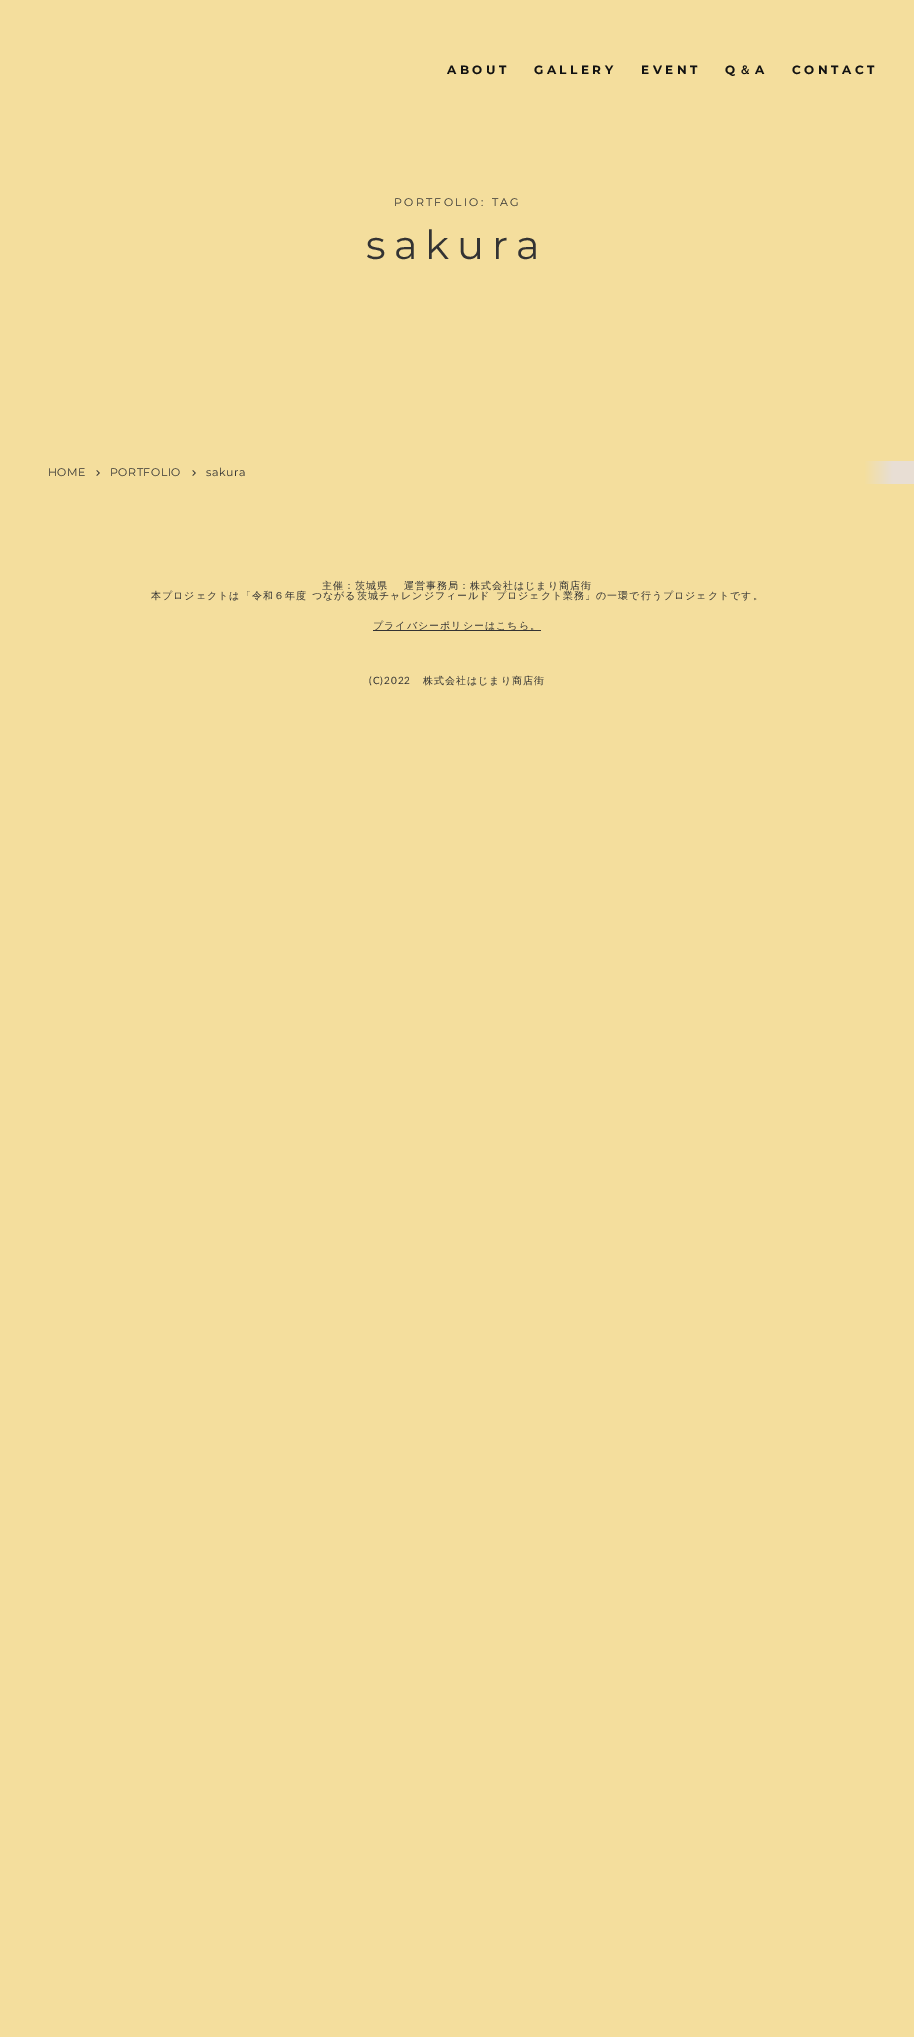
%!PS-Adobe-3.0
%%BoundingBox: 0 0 914 2037
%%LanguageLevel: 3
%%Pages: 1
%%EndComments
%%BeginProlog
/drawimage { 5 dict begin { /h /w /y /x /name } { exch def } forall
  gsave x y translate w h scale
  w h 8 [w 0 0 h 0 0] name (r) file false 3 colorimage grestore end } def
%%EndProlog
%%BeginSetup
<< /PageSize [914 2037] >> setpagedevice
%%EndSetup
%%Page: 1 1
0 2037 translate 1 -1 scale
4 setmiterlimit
0.957 0.871 0.616 setrgbcolor
0 0 914 2037 rectfill
(images/1.raw) 96 470 4 6 drawimage
(images/1.raw) 192 470 4 6 drawimage
gsave newpath 865 461 moveto 914 461 lineto 914 484 lineto 865 484 lineto closepath clip newpath
<< /ShadingType 2 /ColorSpace /DeviceRGB /Coords [864 473 914 473] /Extend [true true] /Function << /FunctionType 3 /Domain [0 1] /Functions [<< /FunctionType 2 /Domain [0 1] /C0 [0.957 0.871 0.616] /C1 [0.91 0.871 0.831] /N 1 >> << /FunctionType 2 /Domain [0 1] /C0 [0.91 0.871 0.831] /C1 [0.91 0.871 0.831] /N 1 >>] /Bounds [0.57] /Encode [0 1 0 1] >> >> shfill grestore
0.2 setgray
373 630 168 1 rectfill
/Montserrat-Bold [12 0 0 -12 0 0] selectfont
0.067 setgray
447 74 moveto 3.5 0 (ABOUT) ashow
534 74 moveto 3.5 0 (GALLERY) ashow
641 74 moveto 3.5 0 (EVENT) ashow
725 74 moveto 3.5 0 (Q) ashow
/WenQuanYiZenHei-Bold [12 0 0 -12 0 0] selectfont
739 74 moveto 3.5 0 (＆) ashow
/Montserrat-Bold [12 0 0 -12 0 0] selectfont
755 74 moveto 3.5 0 (A) ashow
792 74 moveto 3.5 0 (CONTACT) ashow
/Montserrat-Regular [11 0 0 -11 0 0] selectfont
0.2 setgray
394 206 moveto 1 0 32 2.25 0 (PORTFOLIO: TAG) awidthshow
/Montserrat-Regular [40 0 0 -40 0 0] selectfont
366 259 moveto 8 0 (sakura) ashow
/Montserrat-Regular [11 0 0 -11 0 0] selectfont
48 476 moveto 0.5 0 (HOME) ashow
110 476 moveto 0.5 0 (PORTFOLIO) ashow
206 476 moveto 0.5 0 (sakura) ashow
/WenQuanYiZenHei-Medium [10 0 0 -10 0 0] selectfont
322 589 moveto 1 0 32 1 0 (主催：茨城県 　運営事務局：株式会社はじまり商店街) awidthshow
151 599 moveto 1 0 32 1 0 (本プロジェクトは「令和６年度 つながる茨城チャレンジフィールド プロジェクト業務」の一環で行うプロジェクトです。) awidthshow
373 629 moveto 1 0 (プライバシーポリシーはこちら。) ashow
/Lato-Regular [10 0 0 -10 0 0] selectfont
369 684 moveto 1 0 (\(C\)2022) ashow
/WenQuanYiZenHei-Medium [10 0 0 -10 0 0] selectfont
423 684 moveto 1 0 (株式会社はじまり商店街) ashow
showpage
%%EOF
